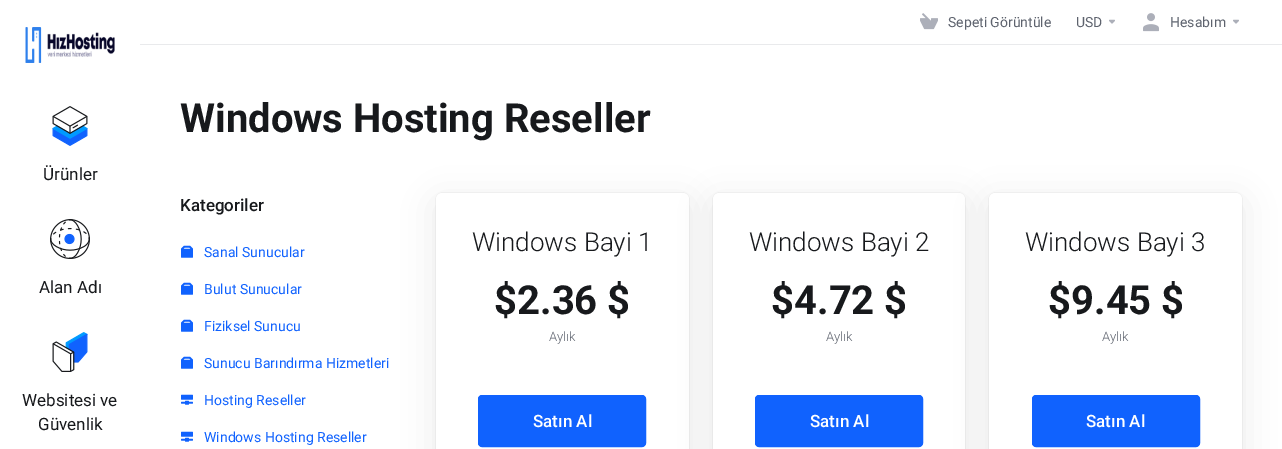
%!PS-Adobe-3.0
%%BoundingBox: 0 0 1282 449
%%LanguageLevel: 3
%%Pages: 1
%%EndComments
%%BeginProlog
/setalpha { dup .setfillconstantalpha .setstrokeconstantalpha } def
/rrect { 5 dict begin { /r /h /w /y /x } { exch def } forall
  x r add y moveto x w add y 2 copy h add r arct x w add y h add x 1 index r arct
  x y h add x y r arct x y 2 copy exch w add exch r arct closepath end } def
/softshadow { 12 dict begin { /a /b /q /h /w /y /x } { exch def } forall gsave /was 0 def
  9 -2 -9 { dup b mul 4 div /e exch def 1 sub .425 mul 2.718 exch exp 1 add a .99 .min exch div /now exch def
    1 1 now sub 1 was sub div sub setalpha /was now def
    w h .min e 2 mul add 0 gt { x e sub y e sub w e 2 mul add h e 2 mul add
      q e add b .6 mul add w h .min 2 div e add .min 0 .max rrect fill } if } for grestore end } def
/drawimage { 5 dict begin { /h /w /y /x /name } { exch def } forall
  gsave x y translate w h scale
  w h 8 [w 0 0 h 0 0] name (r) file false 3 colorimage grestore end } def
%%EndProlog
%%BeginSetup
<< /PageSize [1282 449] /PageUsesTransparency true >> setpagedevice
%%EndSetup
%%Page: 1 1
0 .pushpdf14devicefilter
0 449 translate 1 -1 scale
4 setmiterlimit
1 setgray
0 0 1282 449 rectfill
(images/1.raw) 25 27 90 36 drawimage
(images/2.raw) 52 106 36 40 drawimage
(images/3.raw) 50 219 40 40 drawimage
(images/4.raw) 52 332 36 40 drawimage
0.914 0.918 0.925 setrgbcolor
140 44 1142 1 rectfill
(images/5.raw) 920 13 18 17 drawimage
(images/6.raw) 1109 19 6 5 drawimage
(images/7.raw) 1143 13 16 19 drawimage
(images/6.raw) 1233 19 6 5 drawimage
(images/8.raw) 181 245 12 13 drawimage
(images/8.raw) 181 282 12 13 drawimage
(images/8.raw) 181 319 12 13 drawimage
(images/8.raw) 181 356 12 13 drawimage
(images/9.raw) 181 394 12 11 drawimage
(images/9.raw) 181 431 12 11 drawimage
0 setgray
436 201 253 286 6 16 0.08 softshadow
436 193 253 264 6 0.5 0.12 softshadow
1 setgray
436 193 253 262 6 rrect fill
0.063 0.384 0.996 setrgbcolor
478.5 395.5 167 51 3.5 rrect gsave fill grestore
stroke
0 setgray
713 201 252 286 6 16 0.08 softshadow
713 193 252 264 6 0.5 0.12 softshadow
1 setgray
713 193 252 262 6 rrect fill
0.063 0.384 0.996 setrgbcolor
755.5 395.5 167 51 3.5 rrect gsave fill grestore
stroke
0 setgray
989 201 253 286 6 16 0.08 softshadow
989 193 253 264 6 0.5 0.12 softshadow
1 setgray
989 193 253 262 6 rrect fill
0.063 0.384 0.996 setrgbcolor
1032.5 395.5 167 51 3.5 rrect gsave fill grestore
stroke
/Roboto-Regular [17 0 0 -17 0 0] selectfont
0.09 0.098 0.11 setrgbcolor
43 180 moveto (Ürünler) show
39 293 moveto (Alan Adı) show
22 406 moveto (Websitesi ve) show
38 430 moveto (Güvenlik) show
/Roboto-Regular [14 0 0 -14 0 0] selectfont
0.369 0.388 0.431 setrgbcolor
948 27 moveto (Sepeti Görüntüle) show
1076 27 moveto (USD) show
1170 27 moveto (Hesabım) show
/Roboto-Bold [40 0 0 -40 0 0] selectfont
0.09 0.098 0.11 setrgbcolor
180 132 moveto (Windows Hosting Reseller) show
/Roboto-Medium [17 0 0 -17 0 0] selectfont
180 211 moveto (Kategoriler) show
/Roboto-Regular [14 0 0 -14 0 0] selectfont
0.063 0.384 0.996 setrgbcolor
204 257 moveto (Sanal Sunucular) show
204 294 moveto (Bulut Sunucular) show
204 331 moveto (Fiziksel Sunucu) show
204 368 moveto (Sunucu Barındırma Hizmetleri) show
204 405 moveto (Hosting Reseller) show
204 442 moveto (Windows Hosting Reseller) show
/Roboto-Light [26 0 0 -26 0 0] selectfont
0.09 0.098 0.11 setrgbcolor
472 251 moveto (Windows Bayi 1) show
/Roboto-Bold [40 0 0 -40 0 0] selectfont
494 314 moveto ($2.36 $) show
/Roboto-Light [13 0 0 -13 0 0] selectfont
0.369 0.388 0.431 setrgbcolor
549 341 moveto (Aylık) show
/Roboto-Medium [17 0 0 -17 0 0] selectfont
1 setgray
533 427 moveto (Satın Al) show
/Roboto-Light [26 0 0 -26 0 0] selectfont
0.09 0.098 0.11 setrgbcolor
749 251 moveto (Windows Bayi 2) show
/Roboto-Bold [40 0 0 -40 0 0] selectfont
771 314 moveto ($4.72 $) show
/Roboto-Light [13 0 0 -13 0 0] selectfont
0.369 0.388 0.431 setrgbcolor
826 341 moveto (Aylık) show
/Roboto-Medium [17 0 0 -17 0 0] selectfont
1 setgray
810 427 moveto (Satın Al) show
/Roboto-Light [26 0 0 -26 0 0] selectfont
0.09 0.098 0.11 setrgbcolor
1025 251 moveto (Windows Bayi 3) show
/Roboto-Bold [40 0 0 -40 0 0] selectfont
1048 314 moveto ($9.45 $) show
/Roboto-Light [13 0 0 -13 0 0] selectfont
0.369 0.388 0.431 setrgbcolor
1102 341 moveto (Aylık) show
/Roboto-Medium [17 0 0 -17 0 0] selectfont
1 setgray
1086 427 moveto (Satın Al) show
.poppdf14devicefilter showpage
%%EOF
